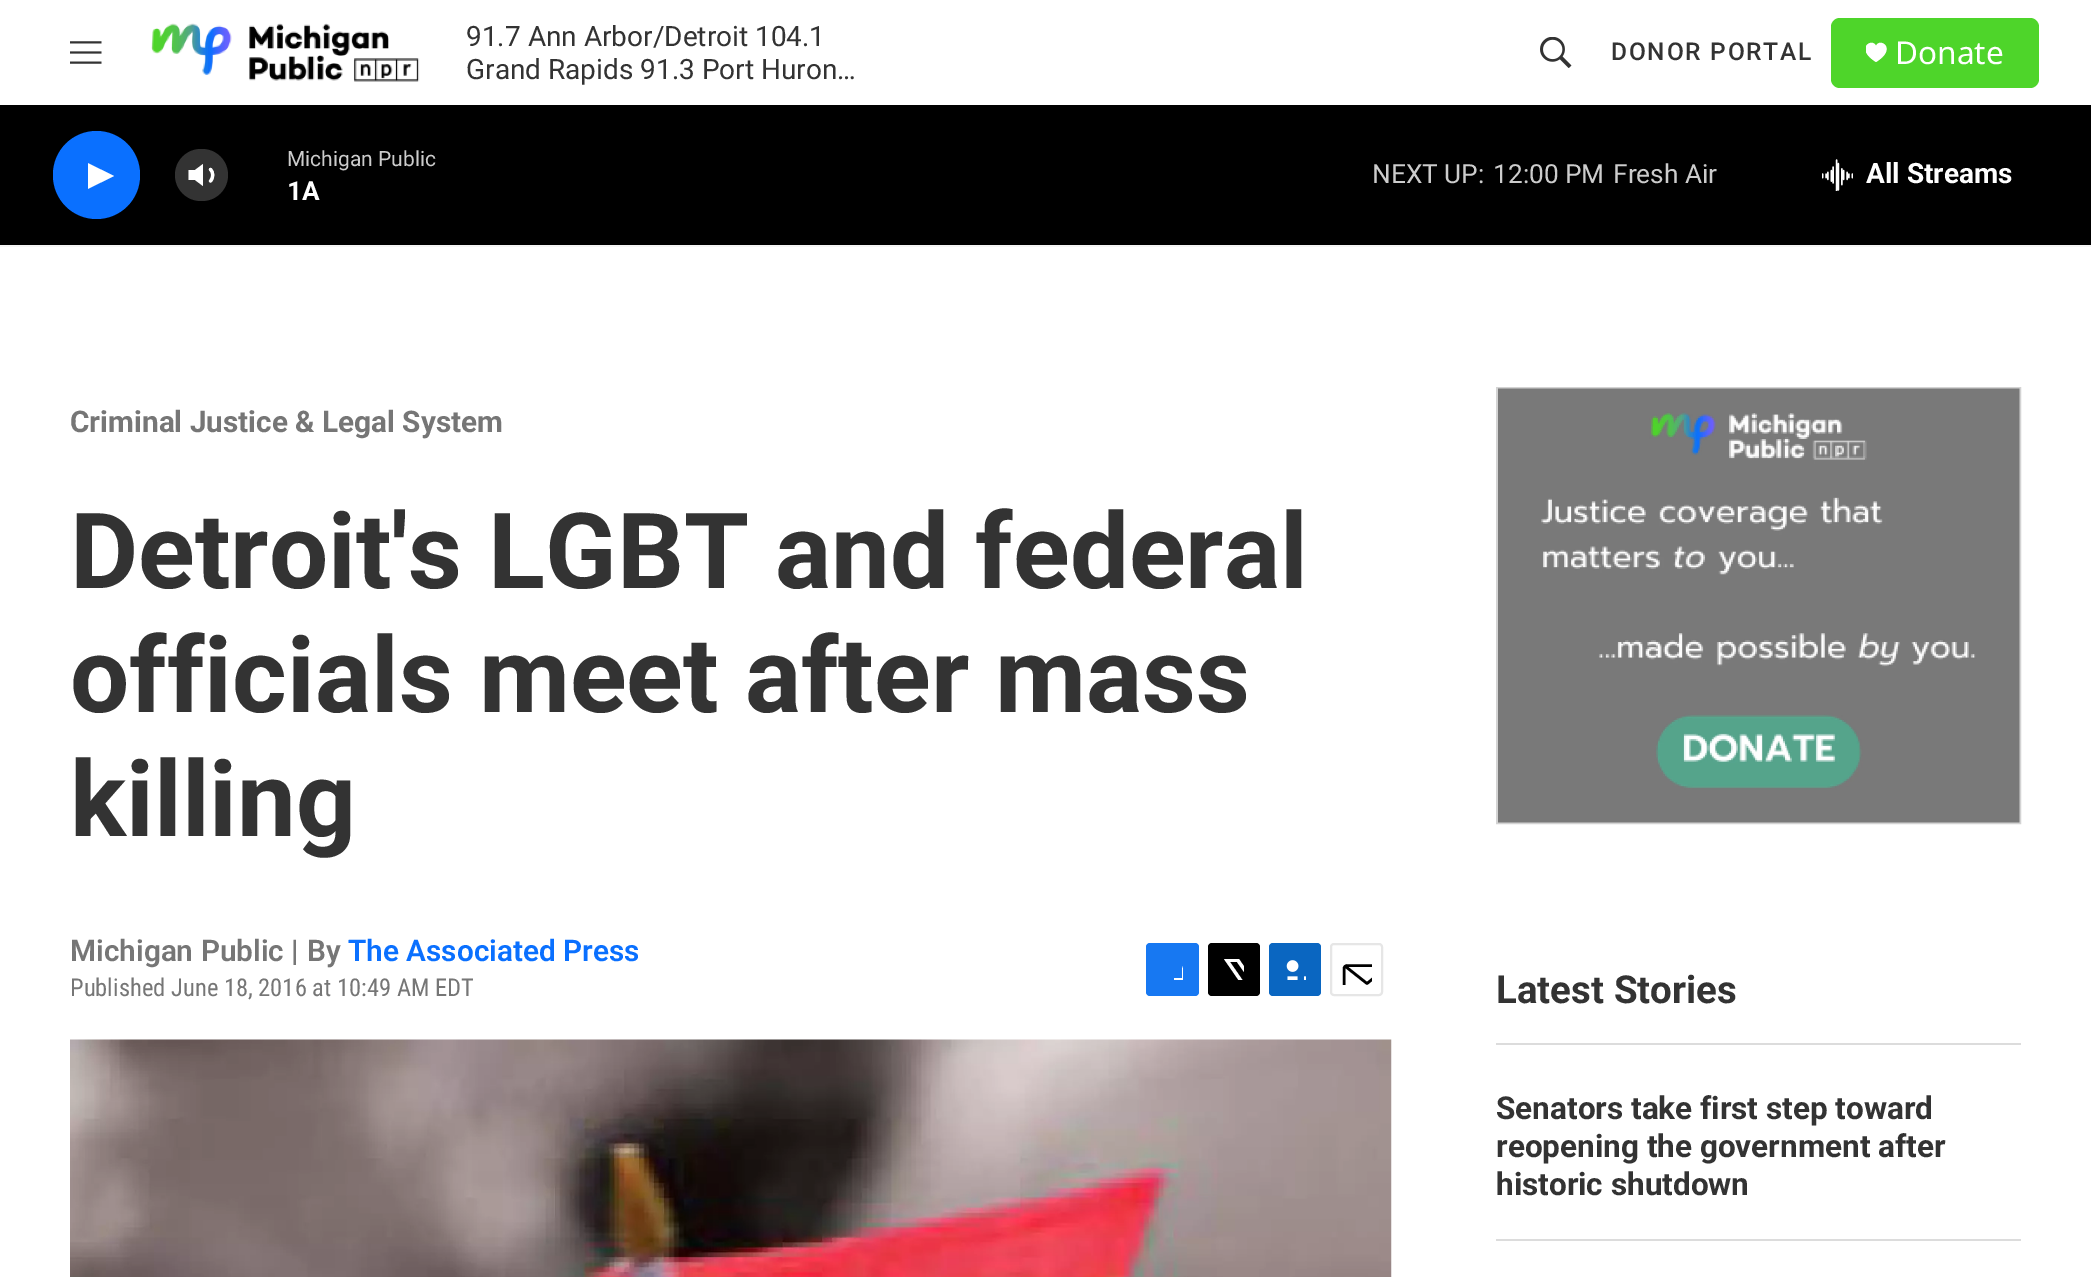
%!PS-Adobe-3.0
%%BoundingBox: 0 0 2091 1277
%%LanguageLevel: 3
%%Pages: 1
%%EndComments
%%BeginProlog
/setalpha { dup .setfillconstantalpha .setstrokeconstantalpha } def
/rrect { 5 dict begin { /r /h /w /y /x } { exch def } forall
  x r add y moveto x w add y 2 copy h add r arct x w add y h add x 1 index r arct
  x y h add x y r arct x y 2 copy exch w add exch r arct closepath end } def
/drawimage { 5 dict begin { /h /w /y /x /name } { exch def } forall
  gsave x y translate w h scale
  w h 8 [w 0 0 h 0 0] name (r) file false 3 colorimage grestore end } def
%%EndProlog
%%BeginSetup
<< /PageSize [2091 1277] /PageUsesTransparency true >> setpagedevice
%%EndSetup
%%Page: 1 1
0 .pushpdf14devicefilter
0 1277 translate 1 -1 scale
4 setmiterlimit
1 setgray
0 0 2091 1277 rectfill
0.961 setgray
0 245 2091 2 rectfill
(images/1.raw) 70 41 32 23 drawimage
(images/2.raw) 151 23 269 59 drawimage
(images/3.raw) 1540 37 32 31 drawimage
0.306 0.835 0.165 setrgbcolor
1831 18 208 70 9 rrect fill
gsave
1866 42 21 21 rectclip
1 setgray
newpath 1876 46 moveto 1872.5 37 1854 48.5 1876 62 curveto 1898 48.5 1879.5 37 1876 46 curveto closepath fill
grestore
0 setgray
0 105 2091 140 rectfill
0.039 0.439 1 setrgbcolor
53 131 87 88 43.5 rrect fill
gsave
88 159 26 34 rectclip
1 setgray
newpath 87.5 163 moveto 114 176 lineto 87.5 189 lineto closepath fill
grestore
1 setgray
newpath 203 164 moveto 195 170 lineto 188.5 170 lineto 188.5 180 lineto 195 180 lineto 203 186 lineto closepath fill
3.2 setlinewidth
1 setlinecap
1 setlinejoin
newpath 210.5 169.5 moveto 213.5 172.5 213.5 177.5 210.5 181 curveto stroke
0.2 setalpha
175 149 53 52 26 rrect fill
1 setalpha
(images/4.raw) 1822 159 31 32 drawimage
0.09 0.471 0.949 setrgbcolor
1146 943 53 53 4 rrect fill
gsave
1162 959 21 21 rectclip
1 setgray
newpath 1191 996 moveto 1182 996 lineto 1182 987 lineto 1174 987 lineto 1174 978 lineto 1182 978 lineto 1182 969 lineto 1184 960.5 1192 959 1199 960 curveto 1199 968 lineto 1189.5 968 1191 970.5 1191 978 curveto 1199 978 lineto 1198 987 lineto 1191 987 lineto closepath fill
grestore
0 setgray
1208 943 52 53 4 rrect fill
gsave
1223 959 21 21 rectclip
1 setgray
newpath 1254 981 moveto 1260 989.5 lineto 1260 991 1260 993 1259.5 994 curveto 1237 962 lineto 1230 962 lineto 1253.5 996 lineto 1249.5 996 lineto 1246 991 lineto 1241.5 996 lineto 1237 996 lineto 1244 988 lineto 1224 959 lineto 1239 959 lineto 1252 978 lineto 1260 969 lineto 1260 974 lineto closepath fill
grestore
0.039 0.4 0.757 setrgbcolor
1269 943 52 53 4 rrect fill
(images/5.raw) 1286 960 20 20 drawimage
0.902 setgray
2 setlinewidth
0 setlinecap
0 setlinejoin
1331 944 51 51 3 rrect stroke
gsave
1341 954 31 31 rectclip
0 setgray
2.6 setlinewidth
1 setlinecap
1 setlinejoin
newpath 1389.5 992 moveto 1389.5 994 1388 995.5 1386 995.5 curveto 1347.5 995.5 lineto 1345.5 995.5 1344 994 1344 992 curveto 1344 968.5 lineto 1344 967 1345.5 965.5 1347.5 965.5 curveto 1386 965.5 lineto 1388 965.5 1389.5 967 1389.5 968.5 curveto closepath 1388 966.5 moveto 1367 983.5 lineto 1345.5 966.5 lineto stroke
grestore
(images/6.raw) 70 1039 1322 238 drawimage
0.827 setgray
1497 388 523 435 rectstroke
(images/7.raw) 1498 388 522 435 drawimage
0.863 setgray
1496 1043 525 2 rectfill
1496 1239 525 2 rectfill
/Roboto-Regular [28 0 0 -28 0 0] selectfont
0.2 setgray
466 46 moveto (91.7 Ann Arbor/Detroit 104.1) show
466 79 moveto (Grand Rapids 91.3 Port Huron…) show
/Roboto-Medium [24.5 0 0 -24.5 0 0] selectfont
1611 60 moveto 1.75 0 (DONOR PORTAL) ashow
/NotoSans-Regular [31.5 0 0 -31.5 0 0] selectfont
1 setgray
1895 64 moveto (Donate) show
/Roboto-Regular [21 0 0 -21 0 0] selectfont
0.8 setgray
287 166 moveto (Michigan Public) show
/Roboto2-Bold [26.25 0 0 -26.25 0 0] selectfont
1 setgray
287 200 moveto (1A) show
/Roboto-Regular [26.25 0 0 -26.25 0 0] selectfont
0.8 setgray
1372 183 moveto (NEXT UP:) show
1493 183 moveto (12:00 PM) show
1613 183 moveto (Fresh Air) show
/Roboto2-Bold [28 0 0 -28 0 0] selectfont
1 setgray
1866 183 moveto (All Streams) show
/Roboto-Bold [29.75 0 0 -29.75 0 0] selectfont
0.463 setgray
70 432 moveto (Criminal Justice & Legal System) show
/Roboto-Bold [105 0 0 -105 0 0] selectfont
0.2 setgray
70 588 moveto (Detroit's LGBT and federal) show
70 712 moveto (officials meet after mass) show
70 836 moveto (killing) show
/Roboto-SemiBold [29.75 0 0 -29.75 0 0] selectfont
0.463 setgray
70 961 moveto (Michigan Public |) show
307 961 moveto (By) show
0.039 0.439 1 setrgbcolor
348 961 moveto (The Associated Press) show
/RobotoCondensed-Regular [24.5 0 0 -24.5 0 0] selectfont
0.463 setgray
70 996 moveto (Published June 18, 2016 at 10:49 AM EDT) show
/Roboto-Bold [38.5 0 0 -38.5 0 0] selectfont
0.2 setgray
1496 1003 moveto (Latest Stories) show
/Roboto-Bold [31.5 0 0 -31.5 0 0] selectfont
1496 1119 moveto (Senators take first step toward) show
1496 1157 moveto (reopening the government after) show
1496 1195 moveto (historic shutdown) show
.poppdf14devicefilter showpage
%%EOF
